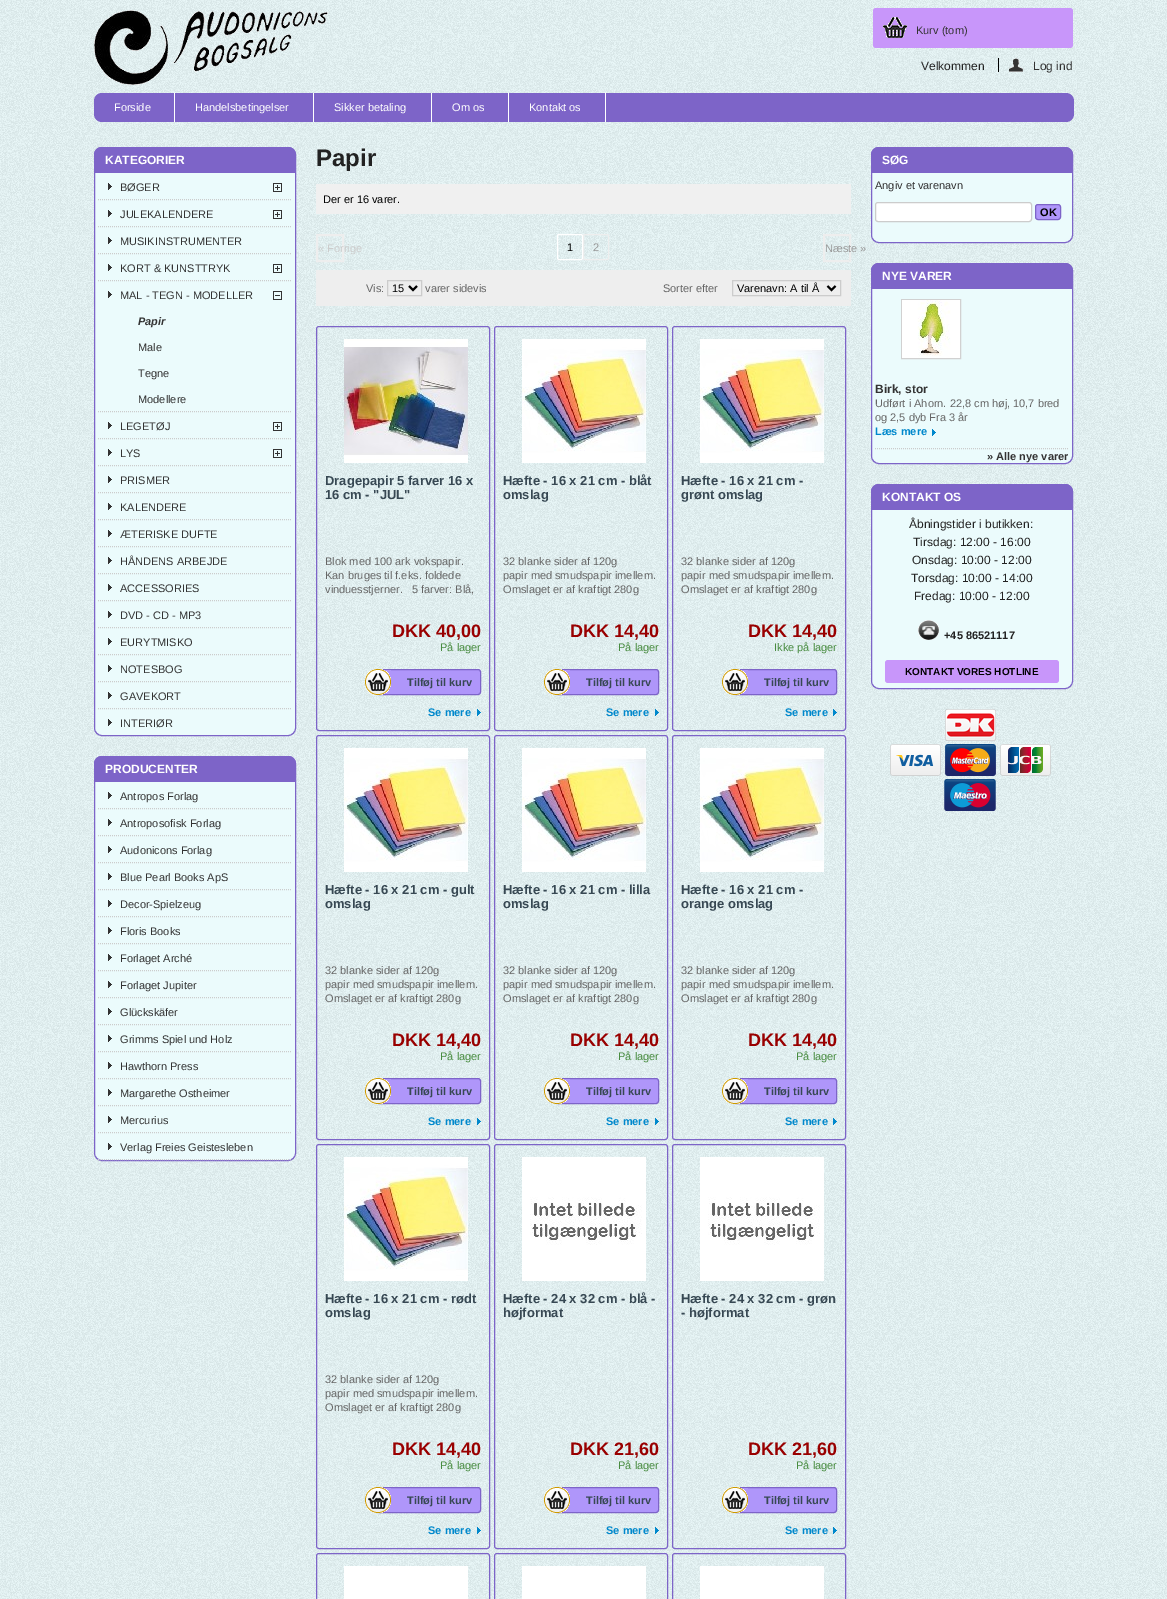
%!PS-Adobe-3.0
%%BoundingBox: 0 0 1167 1599
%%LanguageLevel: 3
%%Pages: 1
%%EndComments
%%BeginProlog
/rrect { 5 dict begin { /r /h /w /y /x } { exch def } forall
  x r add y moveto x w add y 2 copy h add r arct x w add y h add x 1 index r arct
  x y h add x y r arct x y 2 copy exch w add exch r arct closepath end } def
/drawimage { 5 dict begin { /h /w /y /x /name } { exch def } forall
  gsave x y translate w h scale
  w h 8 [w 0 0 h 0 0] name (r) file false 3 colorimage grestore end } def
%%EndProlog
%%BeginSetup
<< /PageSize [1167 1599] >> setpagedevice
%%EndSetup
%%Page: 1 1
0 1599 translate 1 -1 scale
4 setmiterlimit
0.902 0.965 0.969 setrgbcolor
0 0 1167 1599 rectfill
(images/1.raw) 0 0 1167 1599 drawimage
(images/2.raw) 94 10 234 75 drawimage
0.784 0.588 0.98 setrgbcolor
873 8 200 40 3 rrect fill
(images/3.raw) 883 17 24 21 drawimage
(images/4.raw) 1009 58 14 14 drawimage
0 setgray
998 58 1 14 rectfill
0.49 0.392 0.784 setrgbcolor
94 93 980 29 8 rrect fill
1 setgray
174 93 1 29 rectfill
313 93 1 29 rectfill
431 93 1 29 rectfill
508 93 1 29 rectfill
605 93 1 29 rectfill
0.922 0.984 0.988 setrgbcolor
94.5 147.5 201 588 7.5 rrect gsave fill grestore
0.49 0.392 0.784 setrgbcolor
stroke
newpath 102 147 moveto 288 147 lineto 292.5 147 296 150.5 296 155 curveto 296 173 lineto 94 173 lineto 94 155 lineto 94 150.5 97.5 147 102 147 curveto closepath fill
0.8 setgray
[1 1] 0 setdash
newpath 98 199.5 moveto 292 199.5 lineto stroke
(images/5.raw) 108 183 4 7 drawimage
(images/6.raw) 273 183 9 9 drawimage
newpath 98 226.5 moveto 292 226.5 lineto stroke
(images/5.raw) 108 210 4 7 drawimage
(images/6.raw) 273 210 9 9 drawimage
newpath 98 253.5 moveto 292 253.5 lineto stroke
(images/5.raw) 108 237 4 7 drawimage
newpath 98 280.5 moveto 292 280.5 lineto stroke
(images/5.raw) 108 264 4 7 drawimage
(images/6.raw) 273 264 9 9 drawimage
newpath 98 411.5 moveto 292 411.5 lineto stroke
(images/5.raw) 108 291 4 7 drawimage
(images/7.raw) 273 291 9 9 drawimage
newpath 98 438.5 moveto 292 438.5 lineto stroke
(images/5.raw) 108 422 4 7 drawimage
(images/6.raw) 273 422 9 9 drawimage
newpath 98 465.5 moveto 292 465.5 lineto stroke
(images/5.raw) 108 449 4 7 drawimage
(images/6.raw) 273 449 9 9 drawimage
newpath 98 492.5 moveto 292 492.5 lineto stroke
(images/5.raw) 108 476 4 7 drawimage
newpath 98 519.5 moveto 292 519.5 lineto stroke
(images/5.raw) 108 503 4 7 drawimage
newpath 98 546.5 moveto 292 546.5 lineto stroke
(images/5.raw) 108 530 4 7 drawimage
newpath 98 573.5 moveto 292 573.5 lineto stroke
(images/5.raw) 108 557 4 7 drawimage
newpath 98 600.5 moveto 292 600.5 lineto stroke
(images/5.raw) 108 584 4 7 drawimage
newpath 98 627.5 moveto 292 627.5 lineto stroke
(images/5.raw) 108 611 4 7 drawimage
newpath 98 654.5 moveto 292 654.5 lineto stroke
(images/5.raw) 108 638 4 7 drawimage
newpath 98 681.5 moveto 292 681.5 lineto stroke
(images/5.raw) 108 665 4 7 drawimage
newpath 98 708.5 moveto 292 708.5 lineto stroke
(images/5.raw) 108 692 4 7 drawimage
(images/5.raw) 108 719 4 7 drawimage
0.922 0.984 0.988 setrgbcolor
94.5 756.5 201 404 7.5 rrect gsave fill grestore
0.49 0.392 0.784 setrgbcolor
[] 0 setdash
stroke
newpath 102 756 moveto 288 756 lineto 292.5 756 296 759.5 296 764 curveto 296 782 lineto 94 782 lineto 94 764 lineto 94 759.5 97.5 756 102 756 curveto closepath fill
0.8 setgray
[1 1] 0 setdash
newpath 98 808.5 moveto 292 808.5 lineto stroke
(images/5.raw) 108 792 4 7 drawimage
newpath 98 835.5 moveto 292 835.5 lineto stroke
(images/5.raw) 108 819 4 7 drawimage
newpath 98 862.5 moveto 292 862.5 lineto stroke
(images/5.raw) 108 846 4 7 drawimage
newpath 98 889.5 moveto 292 889.5 lineto stroke
(images/5.raw) 108 873 4 7 drawimage
newpath 98 916.5 moveto 292 916.5 lineto stroke
(images/5.raw) 108 900 4 7 drawimage
newpath 98 943.5 moveto 292 943.5 lineto stroke
(images/5.raw) 108 927 4 7 drawimage
newpath 98 970.5 moveto 292 970.5 lineto stroke
(images/5.raw) 108 954 4 7 drawimage
newpath 98 997.5 moveto 292 997.5 lineto stroke
(images/5.raw) 108 981 4 7 drawimage
newpath 98 1024.5 moveto 292 1024.5 lineto stroke
(images/5.raw) 108 1008 4 7 drawimage
newpath 98 1051.5 moveto 292 1051.5 lineto stroke
(images/5.raw) 108 1035 4 7 drawimage
newpath 98 1078.5 moveto 292 1078.5 lineto stroke
(images/5.raw) 108 1062 4 7 drawimage
newpath 98 1105.5 moveto 292 1105.5 lineto stroke
(images/5.raw) 108 1089 4 7 drawimage
newpath 98 1132.5 moveto 292 1132.5 lineto stroke
(images/5.raw) 108 1116 4 7 drawimage
newpath 98 1159.5 moveto 292 1159.5 lineto stroke
(images/5.raw) 108 1143 4 7 drawimage
0.941 setgray
316 184 535 30 rectfill
0.933 setgray
[] 0 setdash
316.5 234.5 27 27 rectstroke
317.5 235.5 25 25 1.5 rrect stroke
1 setgray
557.5 234.5 25 25 1.5 rrect stroke
0.933 setgray
583.5 234.5 25 25 1.5 rrect stroke
823.5 234.5 27 27 rectstroke
824.5 235.5 25 25 1.5 rrect stroke
316 270 535 36 rectfill
0.8 setgray
387.5 280.5 34 15 rectstroke
0 setgray
2 setlinewidth
newpath 409 286 moveto 413 290 lineto 417 286 lineto stroke
0.8 setgray
1 setlinewidth
732.5 280.5 108 15 rectstroke
0 setgray
2 setlinewidth
newpath 827.5 286 moveto 831.5 290 lineto 835.5 286 lineto stroke
0.49 0.392 0.784 setrgbcolor
1 setlinewidth
316.5 326.5 173 404 2.5 rrect stroke
(images/8.raw) 344 339 124 124 drawimage
0.686 0.588 0.98 setrgbcolor
376.5 669.5 104 25 2.5 rrect gsave fill grestore
0.49 0.392 0.784 setrgbcolor
stroke
(images/9.raw) 365 669 26 26 drawimage
(images/10.raw) 477 709 4 7 drawimage
494.5 326.5 173 404 2.5 rrect stroke
(images/11.raw) 522 339 124 124 drawimage
0.686 0.588 0.98 setrgbcolor
555.5 669.5 103 25 2.5 rrect gsave fill grestore
0.49 0.392 0.784 setrgbcolor
stroke
(images/12.raw) 544 669 26 26 drawimage
(images/13.raw) 655 709 4 7 drawimage
672.5 326.5 173 404 2.5 rrect stroke
(images/11.raw) 700 339 124 124 drawimage
0.686 0.588 0.98 setrgbcolor
733.5 669.5 103 25 2.5 rrect gsave fill grestore
0.49 0.392 0.784 setrgbcolor
stroke
(images/14.raw) 722 669 26 26 drawimage
(images/15.raw) 833 709 4 7 drawimage
316.5 735.5 173 404 2.5 rrect stroke
(images/11.raw) 344 748 124 124 drawimage
0.686 0.588 0.98 setrgbcolor
376.5 1078.5 104 25 2.5 rrect gsave fill grestore
0.49 0.392 0.784 setrgbcolor
stroke
(images/16.raw) 365 1078 26 26 drawimage
(images/17.raw) 477 1118 4 7 drawimage
494.5 735.5 173 404 2.5 rrect stroke
(images/11.raw) 522 748 124 124 drawimage
0.686 0.588 0.98 setrgbcolor
555.5 1078.5 103 25 2.5 rrect gsave fill grestore
0.49 0.392 0.784 setrgbcolor
stroke
(images/18.raw) 544 1078 26 26 drawimage
(images/19.raw) 655 1118 4 7 drawimage
672.5 735.5 173 404 2.5 rrect stroke
(images/11.raw) 700 748 124 124 drawimage
0.686 0.588 0.98 setrgbcolor
733.5 1078.5 103 25 2.5 rrect gsave fill grestore
0.49 0.392 0.784 setrgbcolor
stroke
(images/20.raw) 722 1078 26 26 drawimage
(images/21.raw) 833 1118 4 7 drawimage
316.5 1144.5 173 404 2.5 rrect stroke
(images/11.raw) 344 1157 124 124 drawimage
0.686 0.588 0.98 setrgbcolor
376.5 1487.5 104 25 2.5 rrect gsave fill grestore
0.49 0.392 0.784 setrgbcolor
stroke
(images/22.raw) 365 1487 26 26 drawimage
(images/23.raw) 477 1527 4 7 drawimage
494.5 1144.5 173 404 2.5 rrect stroke
(images/24.raw) 522 1157 124 124 drawimage
0.686 0.588 0.98 setrgbcolor
555.5 1487.5 103 25 2.5 rrect gsave fill grestore
0.49 0.392 0.784 setrgbcolor
stroke
(images/25.raw) 544 1487 26 26 drawimage
(images/26.raw) 655 1527 4 7 drawimage
672.5 1144.5 173 404 2.5 rrect stroke
(images/24.raw) 700 1157 124 124 drawimage
0.686 0.588 0.98 setrgbcolor
733.5 1487.5 103 25 2.5 rrect gsave fill grestore
0.49 0.392 0.784 setrgbcolor
stroke
(images/27.raw) 722 1487 26 26 drawimage
(images/28.raw) 833 1527 4 7 drawimage
316.5 1553.5 173 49 2.5 rrect stroke
1 setgray
344 1566 124 33 rectfill
0.49 0.392 0.784 setrgbcolor
494.5 1553.5 173 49 2.5 rrect stroke
1 setgray
522 1566 124 33 rectfill
0.49 0.392 0.784 setrgbcolor
672.5 1553.5 173 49 2.5 rrect stroke
1 setgray
700 1566 124 33 rectfill
0.922 0.984 0.988 setrgbcolor
871.5 147.5 201 95 7.5 rrect gsave fill grestore
0.49 0.392 0.784 setrgbcolor
stroke
newpath 879 147 moveto 1065 147 lineto 1069.5 147 1073 150.5 1073 155 curveto 1073 173 lineto 871 173 lineto 871 155 lineto 871 150.5 874.5 147 879 147 curveto closepath fill
1 setgray
875.5 202.5 156 19 2.5 rrect gsave fill grestore
0.8 setgray
stroke
0.686 0.588 0.98 setrgbcolor
1035.5 204.5 25 15 2.5 rrect gsave fill grestore
0.49 0.392 0.784 setrgbcolor
stroke
0.922 0.984 0.988 setrgbcolor
871.5 263.5 201 200 7.5 rrect gsave fill grestore
0.49 0.392 0.784 setrgbcolor
stroke
newpath 879 263 moveto 1065 263 lineto 1069.5 263 1073 266.5 1073 271 curveto 1073 289 lineto 871 289 lineto 871 271 lineto 871 266.5 874.5 263 879 263 curveto closepath fill
0.82 setgray
901.5 299.5 59 59 rectstroke
(images/29.raw) 902 300 58 58 drawimage
0.8 setgray
[1 1] 0 setdash
newpath 875 448.5 moveto 1069 448.5 lineto stroke
(images/30.raw) 932 429 4 7 drawimage
0.922 0.984 0.988 setrgbcolor
871.5 484.5 201 204 7.5 rrect gsave fill grestore
0.49 0.392 0.784 setrgbcolor
[] 0 setdash
stroke
newpath 879 484 moveto 1065 484 lineto 1069.5 484 1073 487.5 1073 492 curveto 1073 510 lineto 871 510 lineto 871 492 lineto 871 487.5 874.5 484 879 484 curveto closepath fill
(images/31.raw) 918 620 21 20 drawimage
0.784 0.588 0.98 setrgbcolor
885 660 174 23 3 rrect fill
(images/32.raw) 945 709 51 32 drawimage
(images/33.raw) 890 744 51 32 drawimage
(images/34.raw) 945 744 51 32 drawimage
(images/35.raw) 1000 744 51 32 drawimage
(images/36.raw) 944 779 52 32 drawimage
/LiberationSans-Regular [11 0 0 -11 0 0] selectfont
0.2 setgray
916 34 moveto (Kurv \(tom\)) show
/LiberationSans-Regular [12 0 0 -12 0 0] selectfont
0.133 setgray
921 70 moveto (Velkommen) show
0.2 setgray
1033 70 moveto (Log ind) show
/LiberationSans-Regular [11 0 0 -11 0 0] selectfont
1 setgray
114 111 moveto (Forside) show
195 111 moveto (Handelsbetingelser) show
334 111 moveto (Sikker betaling) show
452 111 moveto (Om os) show
529 111 moveto (Kontakt os) show
/LiberationSans-Bold [12 0 0 -12 0 0] selectfont
105 164 moveto (KATEGORIER) show
/LiberationSans-Regular [11 0 0 -11 0 0] selectfont
0.2 setgray
120 191 moveto (BØGER) show
120 218 moveto (JULEKALENDERE) show
120 245 moveto (MUSIKINSTRUMENTER) show
120 272 moveto (KORT & KUNSTTRYK) show
120 299 moveto (MAL - TEGN - MODELLER) show
/LiberationSans-BoldItalic [11 0 0 -11 0 0] selectfont
138 325 moveto (Papir) show
/LiberationSans-Regular [11 0 0 -11 0 0] selectfont
138 351 moveto (Male) show
138 377 moveto (Tegne) show
138 403 moveto (Modellere) show
120 430 moveto (LEGETØJ) show
120 457 moveto (LYS) show
120 484 moveto (PRISMER) show
120 511 moveto (KALENDERE) show
120 538 moveto (ÆTERISKE DUFTE) show
120 565 moveto (HÅNDENS ARBEJDE) show
120 592 moveto (ACCESSORIES) show
120 619 moveto (DVD - CD - MP3) show
120 646 moveto (EURYTMISKO) show
120 673 moveto (NOTESBOG) show
120 700 moveto (GAVEKORT) show
120 727 moveto (INTERIØR) show
/LiberationSans-Bold [12 0 0 -12 0 0] selectfont
1 setgray
105 773 moveto (PRODUCENTER) show
/LiberationSans-Regular [11 0 0 -11 0 0] selectfont
0.2 setgray
120 800 moveto (Antropos Forlag) show
120 827 moveto (Antroposofisk Forlag) show
120 854 moveto (Audonicons Forlag) show
120 881 moveto (Blue Pearl Books ApS) show
120 908 moveto (Decor-Spielzeug) show
120 935 moveto (Floris Books) show
120 962 moveto (Forlaget Arché) show
120 989 moveto (Forlaget Jupiter) show
120 1016 moveto (Glückskäfer) show
120 1043 moveto (Grimms Spiel und Holz) show
120 1070 moveto (Hawthorn Press) show
120 1097 moveto (Margarethe Ostheimer) show
120 1124 moveto (Mercurius) show
120 1151 moveto (Verlag Freies Geistesleben) show
/LiberationSans-Bold [24 0 0 -24 0 0] selectfont
0.133 setgray
316 166 moveto (Papir) show
/LiberationSans-Regular [11 0 0 -11 0 0] selectfont
0 setgray
323 203 moveto (Der er 16 varer.) show
0.8 setgray
318 252 moveto (« Forrige) show
0 setgray
567 251 moveto (1) show
0.6 setgray
593 251 moveto (2) show
825 252 moveto (Næste ») show
0.4 setgray
366 292 moveto (Vis:) show
0 setgray
392 292 moveto (15) show
0.4 setgray
425 292 moveto (varer sidevis) show
663 292 moveto (Sorter efter) show
0 setgray
737 292 moveto (Varenavn: A til Å) show
/LiberationSans-Bold [13 0 0 -13 0 0] selectfont
0.216 0.282 0.325 setrgbcolor
325 485 moveto (Dragepapir 5 farver 16 x) show
325 499 moveto (16 cm - "JUL") show
/LiberationSans-Regular [11 0 0 -11 0 0] selectfont
0.4 setgray
325 565 moveto (Blok med 100 ark vokspapir.) show
325 579 moveto (Kan bruges til f.eks. foldede) show
325 593 moveto (vinduesstjerner.   5 farver: Blå,) show
/LiberationSans-Bold [18 0 0 -18 0 0] selectfont
0.6 0 0 setrgbcolor
392 637 moveto (DKK 40,00) show
/LiberationSans-Regular [11 0 0 -11 0 0] selectfont
0.282 0.549 0.251 setrgbcolor
440 651 moveto (På lager) show
/LiberationSans-Bold [11 0 0 -11 0 0] selectfont
0.216 0.282 0.325 setrgbcolor
407 686 moveto (Tilføj til kurv) show
0 0.533 0.8 setrgbcolor
428 716 moveto (Se mere) show
/LiberationSans-Bold [13 0 0 -13 0 0] selectfont
0.216 0.282 0.325 setrgbcolor
503 485 moveto (Hæfte - 16 x 21 cm - blåt) show
503 499 moveto (omslag) show
/LiberationSans-Regular [11 0 0 -11 0 0] selectfont
0.4 setgray
503 565 moveto (32 blanke sider af 120g) show
503 579 moveto (papir med smudspapir imellem.) show
503 593 moveto (Omslaget er af kraftigt 280g) show
/LiberationSans-Bold [18 0 0 -18 0 0] selectfont
0.6 0 0 setrgbcolor
570 637 moveto (DKK 14,40) show
/LiberationSans-Regular [11 0 0 -11 0 0] selectfont
0.282 0.549 0.251 setrgbcolor
618 651 moveto (På lager) show
/LiberationSans-Bold [11 0 0 -11 0 0] selectfont
0.216 0.282 0.325 setrgbcolor
586 686 moveto (Tilføj til kurv) show
0 0.533 0.8 setrgbcolor
606 716 moveto (Se mere) show
/LiberationSans-Bold [13 0 0 -13 0 0] selectfont
0.216 0.282 0.325 setrgbcolor
681 485 moveto (Hæfte - 16 x 21 cm -) show
681 499 moveto (grønt omslag) show
/LiberationSans-Regular [11 0 0 -11 0 0] selectfont
0.4 setgray
681 565 moveto (32 blanke sider af 120g) show
681 579 moveto (papir med smudspapir imellem.) show
681 593 moveto (Omslaget er af kraftigt 280g) show
/LiberationSans-Bold [18 0 0 -18 0 0] selectfont
0.6 0 0 setrgbcolor
748 637 moveto (DKK 14,40) show
/LiberationSans-Regular [11 0 0 -11 0 0] selectfont
0.282 0.549 0.251 setrgbcolor
774 651 moveto (Ikke på lager) show
/LiberationSans-Bold [11 0 0 -11 0 0] selectfont
0.216 0.282 0.325 setrgbcolor
764 686 moveto (Tilføj til kurv) show
0 0.533 0.8 setrgbcolor
785 716 moveto (Se mere) show
/LiberationSans-Bold [13 0 0 -13 0 0] selectfont
0.216 0.282 0.325 setrgbcolor
325 894 moveto (Hæfte - 16 x 21 cm - gult) show
325 908 moveto (omslag) show
/LiberationSans-Regular [11 0 0 -11 0 0] selectfont
0.4 setgray
325 974 moveto (32 blanke sider af 120g) show
325 988 moveto (papir med smudspapir imellem.) show
325 1002 moveto (Omslaget er af kraftigt 280g) show
/LiberationSans-Bold [18 0 0 -18 0 0] selectfont
0.6 0 0 setrgbcolor
392 1046 moveto (DKK 14,40) show
/LiberationSans-Regular [11 0 0 -11 0 0] selectfont
0.282 0.549 0.251 setrgbcolor
440 1060 moveto (På lager) show
/LiberationSans-Bold [11 0 0 -11 0 0] selectfont
0.216 0.282 0.325 setrgbcolor
407 1095 moveto (Tilføj til kurv) show
0 0.533 0.8 setrgbcolor
428 1125 moveto (Se mere) show
/LiberationSans-Bold [13 0 0 -13 0 0] selectfont
0.216 0.282 0.325 setrgbcolor
503 894 moveto (Hæfte - 16 x 21 cm - lilla) show
503 908 moveto (omslag) show
/LiberationSans-Regular [11 0 0 -11 0 0] selectfont
0.4 setgray
503 974 moveto (32 blanke sider af 120g) show
503 988 moveto (papir med smudspapir imellem.) show
503 1002 moveto (Omslaget er af kraftigt 280g) show
/LiberationSans-Bold [18 0 0 -18 0 0] selectfont
0.6 0 0 setrgbcolor
570 1046 moveto (DKK 14,40) show
/LiberationSans-Regular [11 0 0 -11 0 0] selectfont
0.282 0.549 0.251 setrgbcolor
618 1060 moveto (På lager) show
/LiberationSans-Bold [11 0 0 -11 0 0] selectfont
0.216 0.282 0.325 setrgbcolor
586 1095 moveto (Tilføj til kurv) show
0 0.533 0.8 setrgbcolor
606 1125 moveto (Se mere) show
/LiberationSans-Bold [13 0 0 -13 0 0] selectfont
0.216 0.282 0.325 setrgbcolor
681 894 moveto (Hæfte - 16 x 21 cm -) show
681 908 moveto (orange omslag) show
/LiberationSans-Regular [11 0 0 -11 0 0] selectfont
0.4 setgray
681 974 moveto (32 blanke sider af 120g) show
681 988 moveto (papir med smudspapir imellem.) show
681 1002 moveto (Omslaget er af kraftigt 280g) show
/LiberationSans-Bold [18 0 0 -18 0 0] selectfont
0.6 0 0 setrgbcolor
748 1046 moveto (DKK 14,40) show
/LiberationSans-Regular [11 0 0 -11 0 0] selectfont
0.282 0.549 0.251 setrgbcolor
796 1060 moveto (På lager) show
/LiberationSans-Bold [11 0 0 -11 0 0] selectfont
0.216 0.282 0.325 setrgbcolor
764 1095 moveto (Tilføj til kurv) show
0 0.533 0.8 setrgbcolor
785 1125 moveto (Se mere) show
/LiberationSans-Bold [13 0 0 -13 0 0] selectfont
0.216 0.282 0.325 setrgbcolor
325 1303 moveto (Hæfte - 16 x 21 cm - rødt) show
325 1317 moveto (omslag) show
/LiberationSans-Regular [11 0 0 -11 0 0] selectfont
0.4 setgray
325 1383 moveto (32 blanke sider af 120g) show
325 1397 moveto (papir med smudspapir imellem.) show
325 1411 moveto (Omslaget er af kraftigt 280g) show
/LiberationSans-Bold [18 0 0 -18 0 0] selectfont
0.6 0 0 setrgbcolor
392 1455 moveto (DKK 14,40) show
/LiberationSans-Regular [11 0 0 -11 0 0] selectfont
0.282 0.549 0.251 setrgbcolor
440 1469 moveto (På lager) show
/LiberationSans-Bold [11 0 0 -11 0 0] selectfont
0.216 0.282 0.325 setrgbcolor
407 1504 moveto (Tilføj til kurv) show
0 0.533 0.8 setrgbcolor
428 1534 moveto (Se mere) show
/LiberationSans-Bold [13 0 0 -13 0 0] selectfont
0.216 0.282 0.325 setrgbcolor
503 1303 moveto (Hæfte - 24 x 32 cm - blå -) show
503 1317 moveto (højformat) show
/LiberationSans-Bold [18 0 0 -18 0 0] selectfont
0.6 0 0 setrgbcolor
570 1455 moveto (DKK 21,60) show
/LiberationSans-Regular [11 0 0 -11 0 0] selectfont
0.282 0.549 0.251 setrgbcolor
618 1469 moveto (På lager) show
/LiberationSans-Bold [11 0 0 -11 0 0] selectfont
0.216 0.282 0.325 setrgbcolor
586 1504 moveto (Tilføj til kurv) show
0 0.533 0.8 setrgbcolor
606 1534 moveto (Se mere) show
/LiberationSans-Bold [13 0 0 -13 0 0] selectfont
0.216 0.282 0.325 setrgbcolor
681 1303 moveto (Hæfte - 24 x 32 cm - grøn) show
681 1317 moveto (- højformat) show
/LiberationSans-Bold [18 0 0 -18 0 0] selectfont
0.6 0 0 setrgbcolor
748 1455 moveto (DKK 21,60) show
/LiberationSans-Regular [11 0 0 -11 0 0] selectfont
0.282 0.549 0.251 setrgbcolor
796 1469 moveto (På lager) show
/LiberationSans-Bold [11 0 0 -11 0 0] selectfont
0.216 0.282 0.325 setrgbcolor
764 1504 moveto (Tilføj til kurv) show
0 0.533 0.8 setrgbcolor
785 1534 moveto (Se mere) show
/LiberationSans-Bold [12 0 0 -12 0 0] selectfont
1 setgray
882 164 moveto (SØG) show
/LiberationSans-Regular [11 0 0 -11 0 0] selectfont
0.2 setgray
875 189 moveto (Angiv et varenavn) show
/LiberationSans-Bold [11 0 0 -11 0 0] selectfont
0 setgray
1040 216 moveto (OK) show
/LiberationSans-Bold [12 0 0 -12 0 0] selectfont
1 setgray
882 280 moveto (NYE VARER) show
0.2 setgray
875 393 moveto (Birk, stor) show
/LiberationSans-Regular [11 0 0 -11 0 0] selectfont
0.4 setgray
875 407 moveto (Udført i Ahorn. 22,8 cm høj, 10,7 bred) show
875 421 moveto (og 2,5 dyb Fra 3 år) show
/LiberationSans-Bold [11 0 0 -11 0 0] selectfont
0 0.533 0.8 setrgbcolor
875 435 moveto (Læs mere) show
0.2 setgray
987 460 moveto (» Alle nye varer) show
/LiberationSans-Bold [12 0 0 -12 0 0] selectfont
1 setgray
882 501 moveto (KONTAKT OS) show
/LiberationSans-Regular [12 0 0 -12 0 0] selectfont
0.133 setgray
909 528 moveto (Åbningstider i butikken:) show
913 546 moveto (Tirsdag: 12:00 - 16:00) show
912 564 moveto (Onsdag: 10:00 - 12:00) show
911 582 moveto (Torsdag: 10:00 - 14:00) show
914 600 moveto (Fredag: 10:00 - 12:00) show
/LiberationSans-Bold [11 0 0 -11 0 0] selectfont
944 639 moveto (+45 86521117) show
/LiberationSans-Bold [10 0 0 -10 0 0] selectfont
0 setgray
905 675 moveto (KONTAKT VORES HOTLINE) show
showpage
%%EOF
